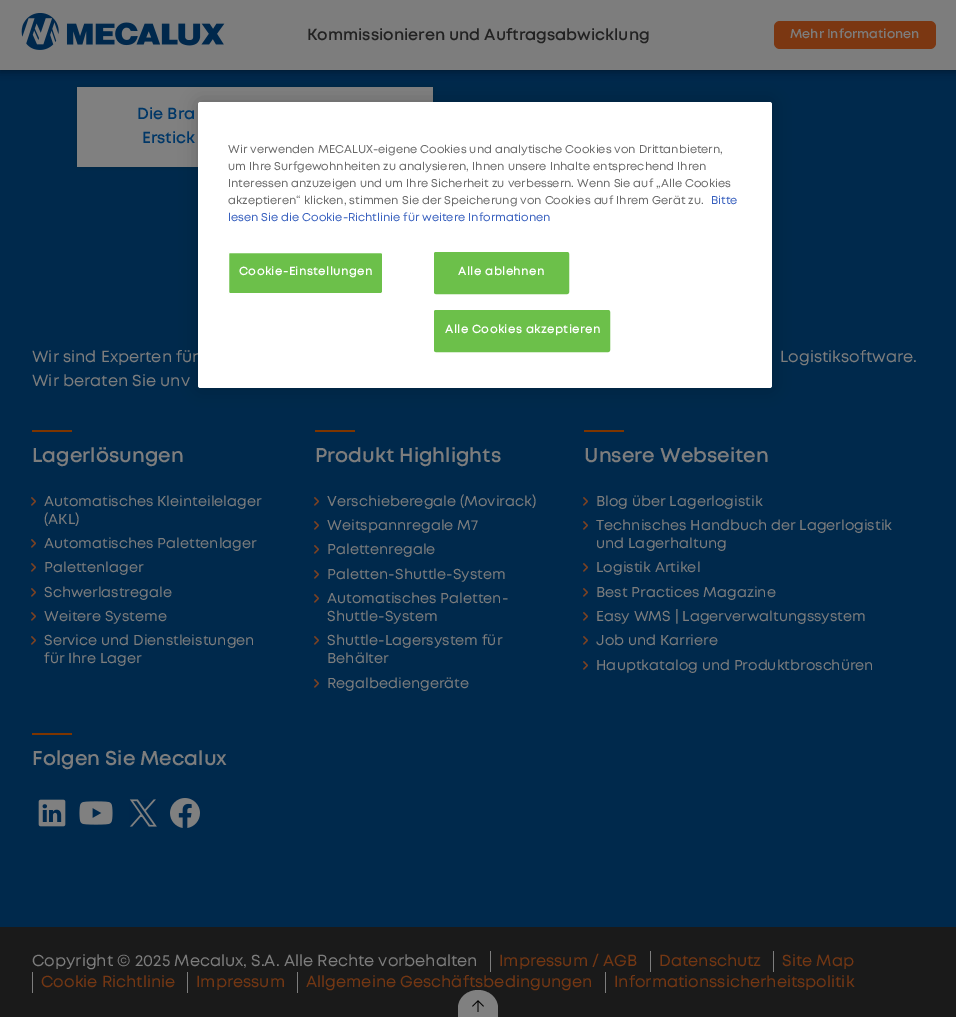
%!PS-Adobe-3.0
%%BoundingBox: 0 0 956 1017
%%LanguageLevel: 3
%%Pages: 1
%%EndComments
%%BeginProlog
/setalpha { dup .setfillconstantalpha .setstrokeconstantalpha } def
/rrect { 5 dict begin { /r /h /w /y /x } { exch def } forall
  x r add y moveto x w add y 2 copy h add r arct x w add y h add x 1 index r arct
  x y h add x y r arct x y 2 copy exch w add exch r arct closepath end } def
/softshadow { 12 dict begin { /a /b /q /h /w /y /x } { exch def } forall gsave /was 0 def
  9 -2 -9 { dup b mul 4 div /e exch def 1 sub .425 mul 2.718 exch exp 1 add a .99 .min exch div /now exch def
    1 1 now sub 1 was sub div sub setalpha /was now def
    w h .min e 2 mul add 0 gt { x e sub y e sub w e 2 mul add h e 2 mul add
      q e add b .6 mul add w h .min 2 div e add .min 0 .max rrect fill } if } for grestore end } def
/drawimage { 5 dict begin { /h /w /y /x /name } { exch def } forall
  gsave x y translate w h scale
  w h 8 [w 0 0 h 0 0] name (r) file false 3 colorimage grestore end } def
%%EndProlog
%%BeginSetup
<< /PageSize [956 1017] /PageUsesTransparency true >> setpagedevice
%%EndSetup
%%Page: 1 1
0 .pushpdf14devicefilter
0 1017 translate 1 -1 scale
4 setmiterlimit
0 0.161 0.298 setrgbcolor
0 0 956 1017 rectfill
0 setgray
0 0 956 70 0 5 0.5 softshadow
0.49 setgray
0 0 956 70 rectfill
(images/1.raw) 21 13 204 37 drawimage
0.482 0.216 0.071 setrgbcolor
774 21 162 28 6 rrect fill
0 setgray
79 89 352 76 0 3 0.3 softshadow
0.502 setgray
77 87 356 80 rectfill
0.49 0.208 0 setrgbcolor
32 430 40 2 rectfill
(images/2.raw) 31 497 5 9 drawimage
(images/2.raw) 31 539 5 9 drawimage
(images/2.raw) 31 563 5 9 drawimage
(images/2.raw) 31 588 5 9 drawimage
(images/2.raw) 31 612 5 9 drawimage
(images/2.raw) 31 636 5 9 drawimage
315 430 40 2 rectfill
(images/2.raw) 314 497 5 9 drawimage
(images/2.raw) 314 521 5 9 drawimage
(images/2.raw) 314 545 5 9 drawimage
(images/2.raw) 314 570 5 9 drawimage
(images/2.raw) 314 594 5 9 drawimage
(images/2.raw) 314 636 5 9 drawimage
(images/2.raw) 314 679 5 9 drawimage
584 430 40 2 rectfill
(images/2.raw) 583 497 5 9 drawimage
(images/2.raw) 583 521 5 9 drawimage
(images/2.raw) 583 563 5 9 drawimage
(images/2.raw) 583 588 5 9 drawimage
(images/2.raw) 583 612 5 9 drawimage
(images/2.raw) 583 636 5 9 drawimage
(images/2.raw) 583 661 5 9 drawimage
32 733 40 2 rectfill
(images/3.raw) 38 799 28 28 drawimage
(images/4.raw) 79 801 34 24 drawimage
(images/5.raw) 129 799 28 28 drawimage
(images/6.raw) 170 798 30 30 drawimage
0.102 setgray
0 927 956 90 rectfill
0.49 setgray
490 951 1 21 rectfill
650 951 1 21 rectfill
773 951 1 21 rectfill
32 972 1 21 rectfill
187 972 1 21 rectfill
297 972 1 21 rectfill
605 972 1 21 rectfill
0 setgray
198 102 574 286 2.5 9 0.2 softshadow
/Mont-SemiBold [16 0 0 -16 0 0] selectfont
0.133 setgray
307 40 moveto (Kommissionieren und Auftragsabwicklung) show
/Mont-SemiBold [12.75 0 0 -12.75 0 0] selectfont
0.49 setgray
790 38 moveto (Mehr Informationen) show
/Mont-SemiBold [16 0 0 -16 0 0] selectfont
0 0.216 0.404 setrgbcolor
137 119 moveto (Die Bra) show
142 143 moveto (Erstick) show
/Mont-Regular [16 0 0 -16 0 0] selectfont
0.49 setgray
32 362 moveto (Wir sind Experten für) show
780 362 moveto (Logistiksoftware.) show
32 386 moveto (Wir beraten Sie unv) show
/Mont-SemiBold [20 0 0 -20 0 0] selectfont
32 462 moveto (Lagerlösungen) show
/Mont-Regular [14.4 0 0 -14.4 0 0] selectfont
44 506 moveto (Automatisches Kleinteilelager) show
44 524 moveto (\(AKL\)) show
44 548 moveto (Automatisches Palettenlager) show
44 572 moveto (Palettenlager) show
44 597 moveto (Schwerlastregale) show
44 621 moveto (Weitere Systeme) show
44 645 moveto (Service und Dienstleistungen) show
44 663 moveto (für Ihre Lager) show
/Mont-SemiBold [20 0 0 -20 0 0] selectfont
315 462 moveto (Produkt Highlights) show
/Mont-Regular [14.4 0 0 -14.4 0 0] selectfont
327 506 moveto (Verschieberegale \(Movirack\)) show
327 530 moveto (Weitspannregale M7) show
327 554 moveto (Palettenregale) show
327 579 moveto (Paletten-Shuttle-System) show
327 603 moveto (Automatisches Paletten-) show
327 621 moveto (Shuttle-System) show
327 645 moveto (Shuttle-Lagersystem für) show
327 663 moveto (Behälter) show
327 688 moveto (Regalbediengeräte) show
/Mont-SemiBold [20 0 0 -20 0 0] selectfont
584 462 moveto (Unsere Webseiten) show
/Mont-Regular [14.4 0 0 -14.4 0 0] selectfont
596 506 moveto (Blog über Lagerlogistik) show
596 530 moveto (Technisches Handbuch der Lagerlogistik) show
596 548 moveto (und Lagerhaltung) show
596 572 moveto (Logistik Artikel) show
596 597 moveto (Best Practices Magazine) show
596 621 moveto (Easy WMS | Lagerverwaltungssystem) show
596 645 moveto (Job und Karriere) show
596 670 moveto (Hauptkatalog und Produktbroschüren) show
/Mont-SemiBold [20 0 0 -20 0 0] selectfont
32 765 moveto (Folgen Sie Mecalux) show
/Mont-Regular [16 0 0 -16 0 0] selectfont
32 966 moveto (Copyright © 2025 Mecalux, S.A. Alle Rechte vorbehalten) show
0.455 0.216 0.075 setrgbcolor
499 966 moveto (Impressum / AGB) show
659 966 moveto (Datenschutz) show
782 966 moveto (Site Map) show
41 987 moveto (Cookie Richtlinie) show
196 987 moveto (Impressum) show
306 987 moveto (Allgemeine Geschäftsbedingungen) show
614 987 moveto (Informationssicherheitspolitik) show
0.502 setgray
newpath 478 990 moveto 489 990 498 998 498 1008 curveto 498 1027 lineto 458 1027 lineto 458 1008 lineto 458 998 467 990 478 990 curveto closepath fill
(images/7.raw) 472 1000 12 12 drawimage
1 setgray
198 102 574 286 2.5 rrect fill
/Mont-Regular [11.4 0 0 -11.4 0 0] selectfont
0.412 setgray
228 153 moveto (Wir verwenden MECALUX-eigene Cookies und analytische Cookies von Drittanbietern,) show
228 170 moveto (um Ihre Surfgewohnheiten zu analysieren, Ihnen unsere Inhalte entsprechend Ihren) show
228 187 moveto (Interessen anzuzeigen und um Ihre Sicherheit zu verbessern. Wenn Sie auf „Alle Cookies) show
228 204 moveto (akzeptieren“ klicken, stimmen Sie der Speicherung von Cookies auf Ihrem Gerät zu.) show
0.22 0.376 0.745 setrgbcolor
711 204 moveto (Bitte) show
228 221 moveto (lesen Sie die Cookie-Richtlinie für weitere Informationen) show
0.424 0.753 0.29 setrgbcolor
228.5 252.5 154 41 1.5 rrect gsave fill grestore
1 setgray
stroke
/Mont-Bold [11.4 0 0 -11.4 0 0] selectfont
239 275 moveto 0.6 0 (Cookie-Einstellungen) ashow
0.424 0.753 0.29 setrgbcolor
434.5 252.5 134 41 1.5 rrect gsave fill grestore
stroke
1 setgray
458 275 moveto 0.6 0 (Alle ablehnen) ashow
0.424 0.753 0.29 setrgbcolor
434.5 310.5 175 41 1.5 rrect gsave fill grestore
stroke
1 setgray
445 333 moveto 0.6 0 (Alle Cookies akzeptieren) ashow
.poppdf14devicefilter showpage
%%EOF
